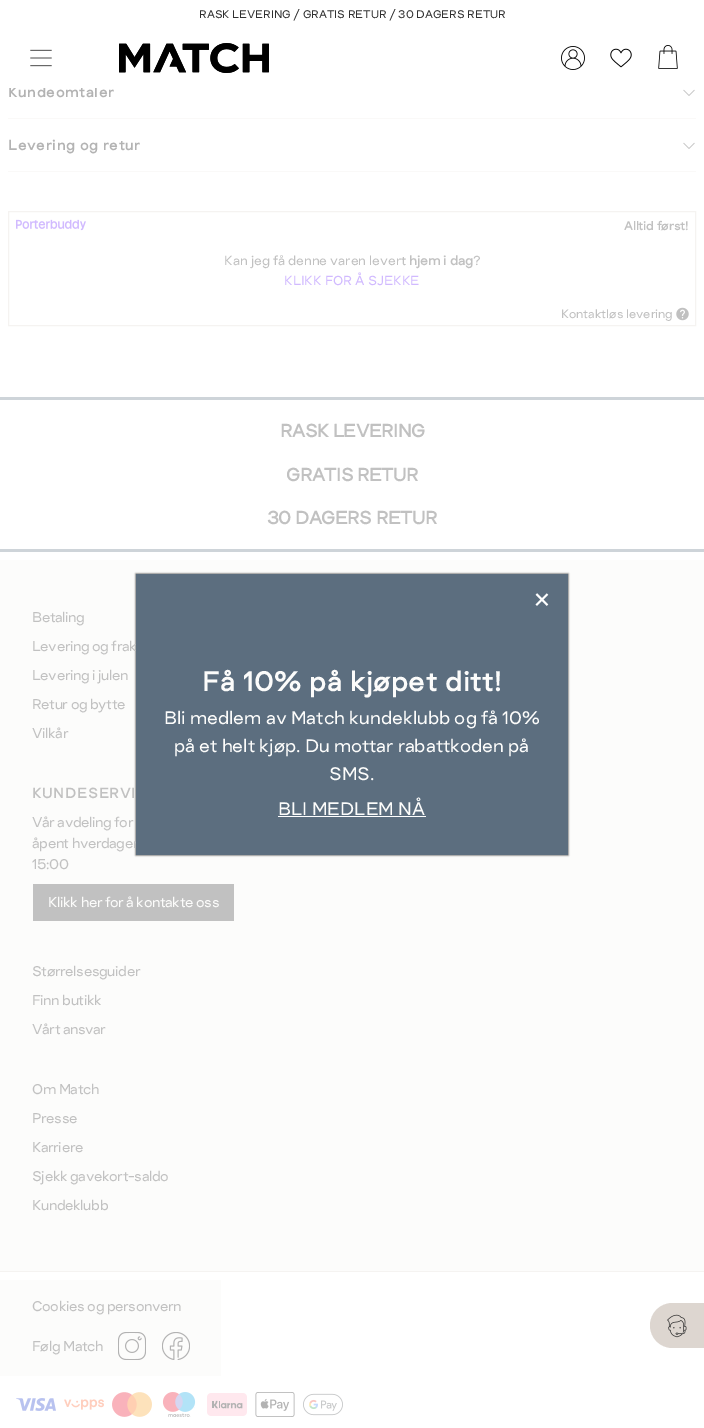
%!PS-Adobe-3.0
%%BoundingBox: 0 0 704 1428
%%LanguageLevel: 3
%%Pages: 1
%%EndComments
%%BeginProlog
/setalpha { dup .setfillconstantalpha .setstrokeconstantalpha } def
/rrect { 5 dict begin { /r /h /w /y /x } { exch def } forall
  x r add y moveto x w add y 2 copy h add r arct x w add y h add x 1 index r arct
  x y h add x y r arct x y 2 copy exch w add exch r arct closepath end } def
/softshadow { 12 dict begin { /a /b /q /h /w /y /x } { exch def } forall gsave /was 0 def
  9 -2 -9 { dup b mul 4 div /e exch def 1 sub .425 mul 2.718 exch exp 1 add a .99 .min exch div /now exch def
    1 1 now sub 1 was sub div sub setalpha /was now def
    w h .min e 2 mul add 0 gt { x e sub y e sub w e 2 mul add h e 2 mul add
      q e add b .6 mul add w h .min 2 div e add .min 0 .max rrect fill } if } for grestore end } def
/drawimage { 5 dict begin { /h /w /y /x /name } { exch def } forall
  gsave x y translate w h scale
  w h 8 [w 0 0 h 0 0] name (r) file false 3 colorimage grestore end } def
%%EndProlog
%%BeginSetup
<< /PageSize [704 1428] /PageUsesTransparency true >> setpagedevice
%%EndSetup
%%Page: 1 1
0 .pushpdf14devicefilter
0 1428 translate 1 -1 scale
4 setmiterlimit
1 setgray
0 0 704 1428 rectfill
(images/1.raw) 30 49 22 18 drawimage
(images/2.raw) 119 43 150 30 drawimage
(images/3.raw) 561 46 24 24 drawimage
(images/4.raw) 610 48 22 20 drawimage
(images/5.raw) 658 45 20 24 drawimage
(images/6.raw) 683 89 12 7 drawimage
0.98 0.976 0.973 setrgbcolor
8 118 688 1 rectfill
8 171 688 1 rectfill
(images/6.raw) 683 142 12 7 drawimage
0.961 0.953 0.945 setrgbcolor
8.5 211.5 687 114 rectstroke
(images/7.raw) 16 219 70 12 drawimage
(images/8.raw) 676 307 13 14 drawimage
0.988 0.988 0.984 setrgbcolor
0 560 704 711 rectfill
0 setgray
136 574 432 281 0 1 1 softshadow
0.808 0.831 0.851 setrgbcolor
0 397 704 3 rectfill
0 549 704 3 rectfill
0.961 0.953 0.945 setrgbcolor
0 1271 704 1 rectfill
0.757 setgray
33 884 201 37 rectfill
0.988 0.988 0.984 setrgbcolor
0 1280 221 96 rectfill
(images/10.raw) 118 1332 28 28 drawimage
(images/11.raw) 162 1332 28 28 drawimage
0.867 0.839 0.816 setrgbcolor
newpath 672.5 1303 moveto 704 1303 lineto 704 1348 lineto 672.5 1348 lineto 660 1348 650 1338 650 1325.5 curveto 650 1313 660 1303 672.5 1303 curveto closepath fill
(images/12.raw) 667 1314 20 24 drawimage
(images/13.raw) 16 1398 40 13 drawimage
(images/14.raw) 64 1399 40 11 drawimage
(images/15.raw) 112 1392 40 25 drawimage
(images/16.raw) 162 1392 34 25 drawimage
(images/17.raw) 207 1393 40 23 drawimage
(images/18.raw) 255 1392 40 25 drawimage
(images/19.raw) 303 1393 40 23 drawimage
/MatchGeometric-Regular [11 0 0 -11 0 0] selectfont
0.192 setgray
199 18 moveto (RASK LEVERING / GRATIS RETUR / 30 DAGERS RETUR) show
/MatchGeometric-Bold [14 0 0 -14 0 0] selectfont
0.702 setgray
8 97 moveto 0.9 0 (Kundeomtaler) ashow
1 setgray
9 86 88 2 rectfill
0.702 setgray
8 150 moveto 0.9 0 (Levering og retur) ashow
/MatchGeometric-Bold [12 0 0 -12 0 0] selectfont
0.757 setgray
624 230 moveto (Alltid først!) show
/MatchGeometric-Regular [13 0 0 -13 0 0] selectfont
224 265 moveto (Kan jeg få denne varen levert) show
/MatchGeometric-Bold [13 0 0 -13 0 0] selectfont
409 265 moveto (hjem i dag) show
/MatchGeometric-Regular [13 0 0 -13 0 0] selectfont
473 265 moveto (?) show
0.82 0.729 1 setrgbcolor
284 285 moveto (KLIKK FOR Å SJEKKE) show
/MatchGeometric-Regular [12 0 0 -12 0 0] selectfont
0.757 setgray
561 318 moveto (Kontaktløs levering) show
/MatchGeometric-Bold [18 0 0 -18 0 0] selectfont
280 437 moveto -0.4 0 (RASK LEVERING) ashow
286 481 moveto -0.4 0 (GRATIS RETUR) ashow
267 524 moveto -0.4 0 (30 DAGERS RETUR) ashow
/MatchGeometric-Regular [14 0 0 -14 0 0] selectfont
32 622 moveto -0.4 0 (Betaling) ashow
32 651 moveto -0.4 0 (Levering og frak) ashow
32 680 moveto -0.4 0 (Levering i julen) ashow
32 709 moveto -0.4 0 (Retur og bytte) ashow
32 738 moveto -0.4 0 (Vilkår) ashow
/MatchGeometric-Bold [14 0 0 -14 0 0] selectfont
32 798 moveto 0.9 0 (KUNDESERVI) ashow
/MatchGeometric-Regular [14 0 0 -14 0 0] selectfont
32 827 moveto -0.4 0 (Vår avdeling for) ashow
32 848 moveto -0.4 0 (åpent hverdager) ashow
0.361 0.431 0.498 setrgbcolor
136 574 432 281 rectfill
(images/9.raw) 535 593 14 13 drawimage
/MatchGeometric-Regular [18 0 0 -18 0 0] selectfont
0.988 0.988 0.984 setrgbcolor
278 815 moveto (BLI MEDLEM NÅ) show
1 setgray
278 816 148 1 rectfill
0.988 0.988 0.984 setrgbcolor
329 780 moveto (SMS.) show
174 752 moveto (på et helt kjøp. Du mottar rabattkoden på) show
164 724 moveto (Bli medlem av Match kundeklubb og få 10%) show
/MatchGeometric-Bold [27 0 0 -27 0 0] selectfont
202 691 moveto 0.9 0 (Få 10% på kjøpet ditt!) ashow
/MatchGeometric-Regular [14 0 0 -14 0 0] selectfont
0.757 setgray
32 869 moveto -0.4 0 (15:00) ashow
0.988 0.988 0.984 setrgbcolor
48 907 moveto -0.4 0 (Klikk her for å kontakte oss) ashow
0.757 setgray
32 976 moveto -0.4 0 (Størrelsesguider) ashow
32 1005 moveto -0.4 0 (Finn butikk) ashow
32 1034 moveto -0.4 0 (Vårt ansvar) ashow
32 1094 moveto -0.4 0 (Om Match) ashow
32 1123 moveto -0.4 0 (Presse) ashow
32 1152 moveto -0.4 0 (Karriere) ashow
32 1181 moveto -0.4 0 (Sjekk gavekort-saldo) ashow
32 1210 moveto -0.4 0 (Kundeklubb) ashow
32 1311 moveto -0.4 0 (Cookies og personvern) ashow
32 1351 moveto -0.4 0 (Følg Match) ashow
.poppdf14devicefilter showpage
%%EOF
